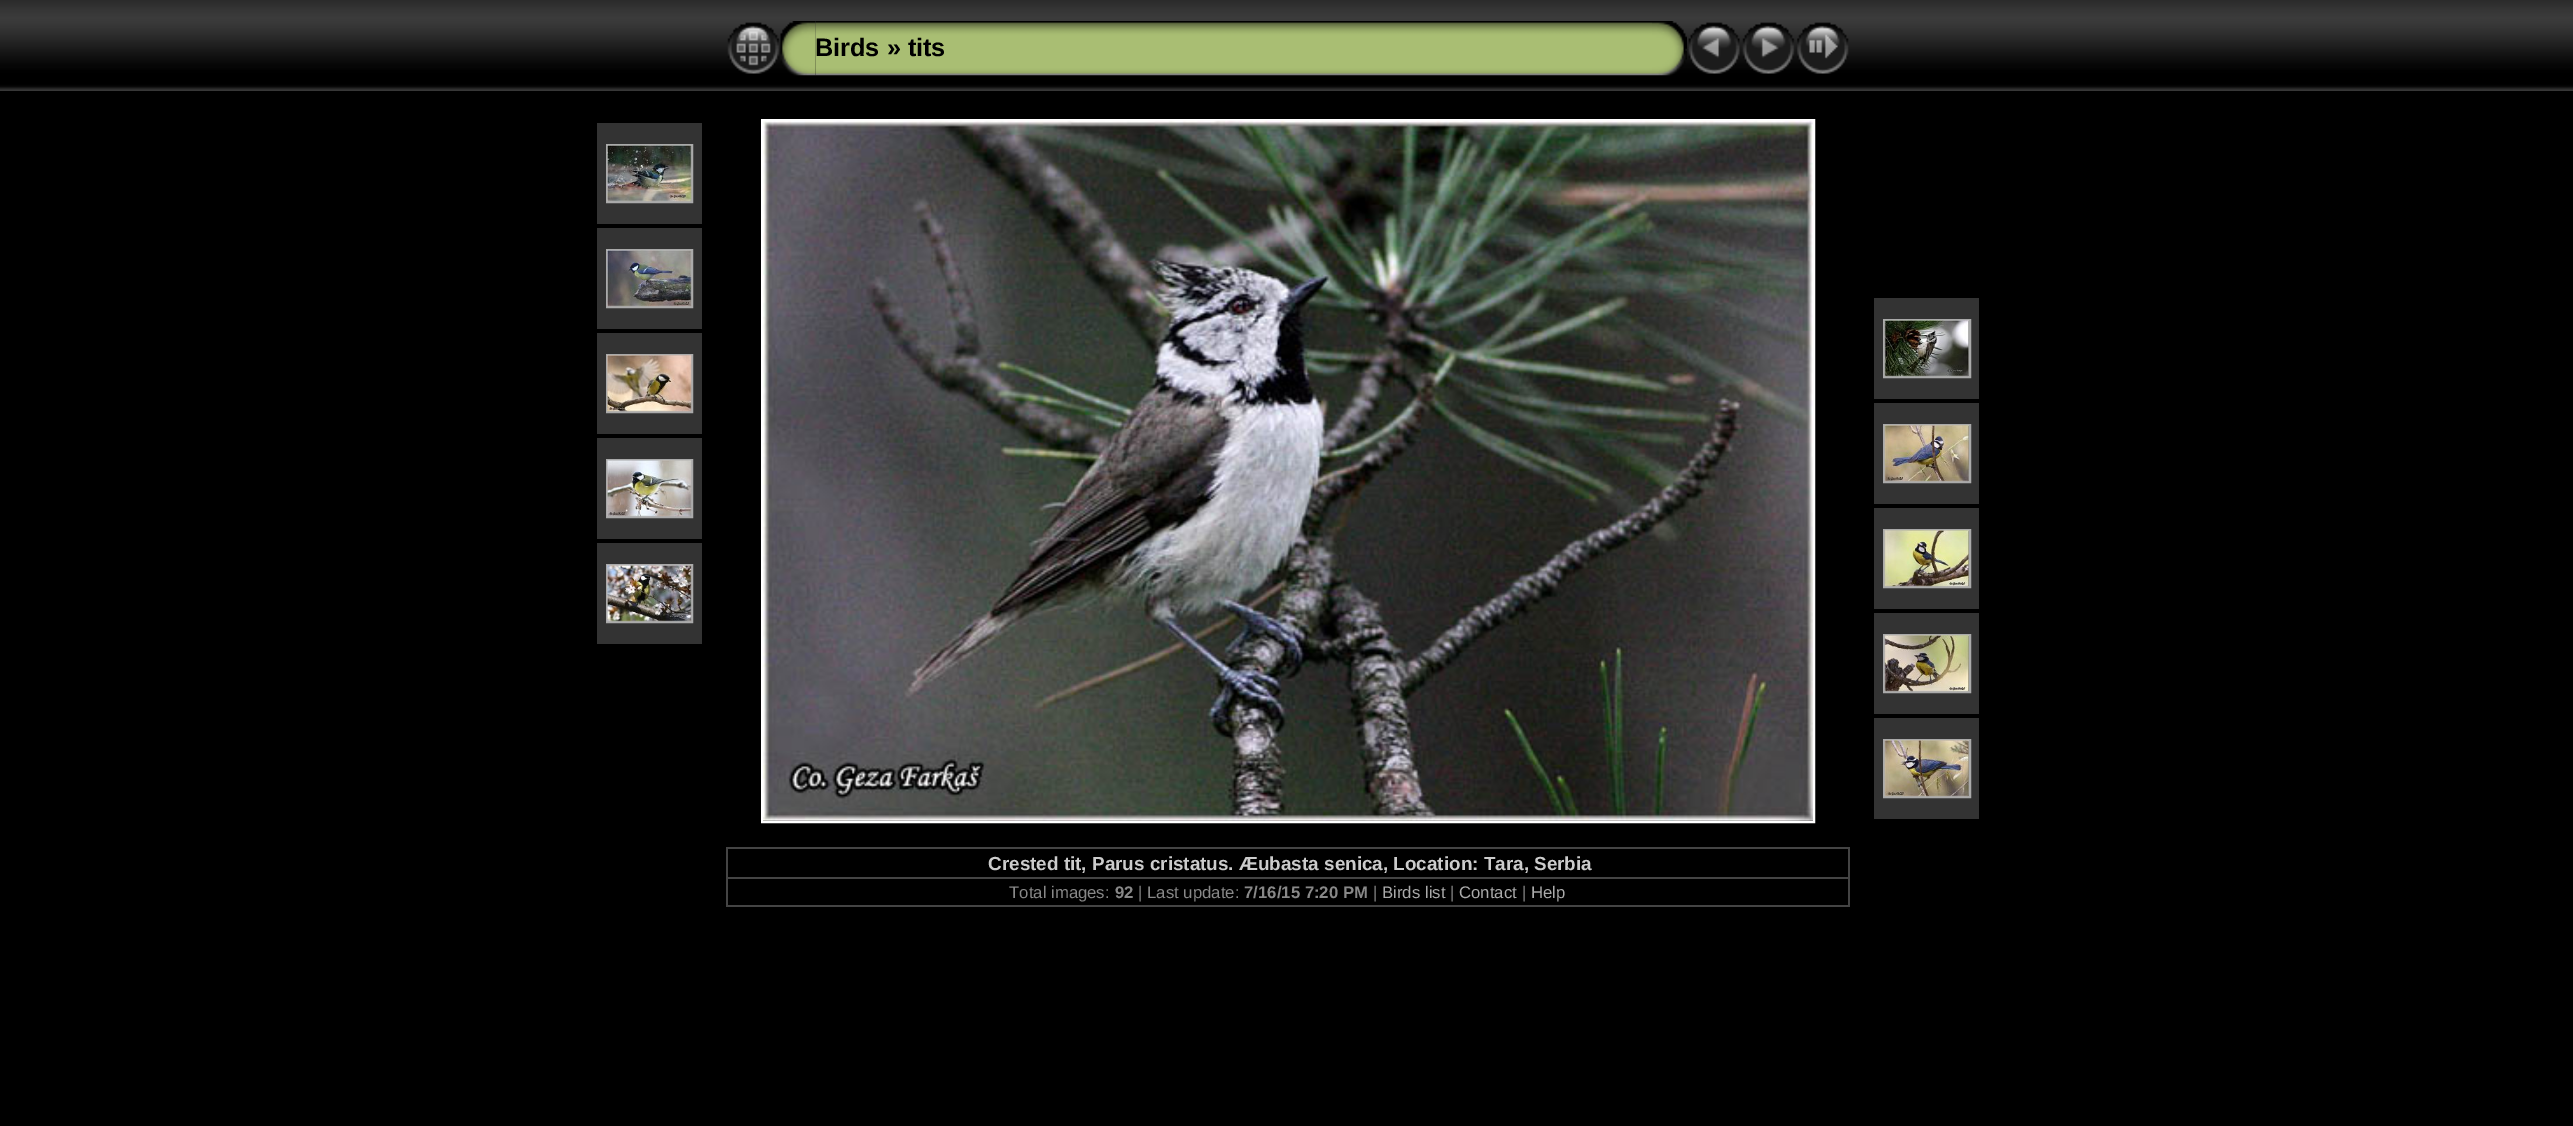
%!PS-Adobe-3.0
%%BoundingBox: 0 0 2573 1126
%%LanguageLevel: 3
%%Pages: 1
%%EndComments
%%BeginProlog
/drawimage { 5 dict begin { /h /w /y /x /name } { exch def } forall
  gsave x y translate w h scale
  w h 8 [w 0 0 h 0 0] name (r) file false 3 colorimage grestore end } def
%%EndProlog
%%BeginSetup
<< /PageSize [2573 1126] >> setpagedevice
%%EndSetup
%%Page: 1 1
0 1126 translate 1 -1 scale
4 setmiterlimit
0 setgray
0 0 2573 1126 rectfill
(images/1.raw) 0 0 2573 91 drawimage
(images/2.raw) 727 22 53 52 drawimage
(images/4.raw) 815 21 837 55 drawimage
(images/3.raw) 780 21 36 55 drawimage
(images/5.raw) 1652 21 35 55 drawimage
(images/6.raw) 1688 22 52 52 drawimage
(images/7.raw) 1742 22 53 52 drawimage
(images/8.raw) 1797 22 52 52 drawimage
0.2 setgray
597 123 105 101 rectfill
0.667 setgray
2 setlinewidth
607 145 85 57 rectstroke
(images/9.raw) 607 145 85 57 drawimage
0.2 setgray
597 228 105 101 rectfill
0.667 setgray
607 250 85 57 rectstroke
(images/10.raw) 607 250 85 57 drawimage
0.2 setgray
597 333 105 101 rectfill
0.667 setgray
607 355 85 57 rectstroke
(images/11.raw) 607 355 85 57 drawimage
0.2 setgray
597 438 105 101 rectfill
0.667 setgray
607 460 85 57 rectstroke
(images/12.raw) 607 460 85 57 drawimage
0.2 setgray
597 543 105 101 rectfill
0.667 setgray
607 565 85 57 rectstroke
(images/13.raw) 607 565 85 57 drawimage
1 setgray
762 120 1052 702 rectstroke
(images/14.raw) 763 120 1050 701 drawimage
0.2 setgray
1874 298 105 101 rectfill
0.667 setgray
1884 320 86 57 rectstroke
(images/15.raw) 1884 320 85 57 drawimage
0.2 setgray
1874 403 105 101 rectfill
0.667 setgray
1884 425 86 57 rectstroke
(images/16.raw) 1884 425 85 57 drawimage
0.2 setgray
1874 508 105 101 rectfill
0.667 setgray
1884 530 86 57 rectstroke
(images/17.raw) 1884 530 85 57 drawimage
0.2 setgray
1874 613 105 101 rectfill
0.667 setgray
1884 635 86 57 rectstroke
(images/18.raw) 1884 635 85 57 drawimage
0.2 setgray
1874 718 105 101 rectfill
0.667 setgray
1884 740 86 57 rectstroke
(images/19.raw) 1884 740 85 57 drawimage
0.267 setgray
726 847 1124 2 rectfill
1848 847 2 60 rectfill
726 905 1124 2 rectfill
726 847 2 60 rectfill
726 877 1124 2 rectfill
/LiberationSans-Bold [25.25 0 0 -25.25 0 0] selectfont
0 setgray
815 56 moveto (Birds » tits) show
/LiberationSans-Bold [18.9 0 0 -18.9 0 0] selectfont
0.8 setgray
988 870 moveto (Crested tit, Parus cristatus. Æubasta senica, Location: Tara, Serbia) show
/LiberationSans-Regular [16.75 0 0 -16.75 0 0] selectfont
0.533 setgray
1009 898 moveto (Total images:) show
/LiberationSans-Bold [16.75 0 0 -16.75 0 0] selectfont
1115 898 moveto (92) show
/LiberationSans-Regular [16.75 0 0 -16.75 0 0] selectfont
1138 898 moveto (| Last update:) show
/LiberationSans-Bold [16.75 0 0 -16.75 0 0] selectfont
1244 898 moveto (7/16/15 7:20 PM) show
/LiberationSans-Regular [16.75 0 0 -16.75 0 0] selectfont
1373 898 moveto (|) show
0.667 setgray
1382 898 moveto (Birds list) show
0.533 setgray
1450 898 moveto (|) show
0.667 setgray
1459 898 moveto (Contact) show
0.533 setgray
1522 898 moveto (|) show
0.667 setgray
1531 898 moveto (Help) show
showpage
%%EOF
